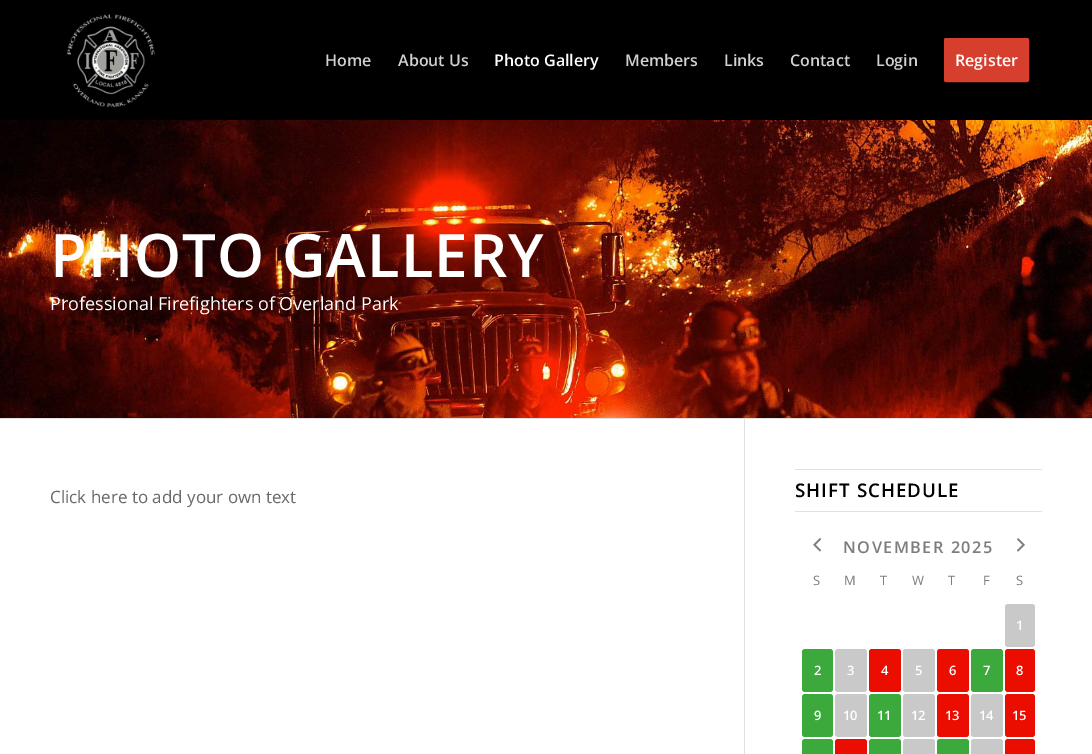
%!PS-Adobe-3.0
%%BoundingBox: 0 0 1092 754
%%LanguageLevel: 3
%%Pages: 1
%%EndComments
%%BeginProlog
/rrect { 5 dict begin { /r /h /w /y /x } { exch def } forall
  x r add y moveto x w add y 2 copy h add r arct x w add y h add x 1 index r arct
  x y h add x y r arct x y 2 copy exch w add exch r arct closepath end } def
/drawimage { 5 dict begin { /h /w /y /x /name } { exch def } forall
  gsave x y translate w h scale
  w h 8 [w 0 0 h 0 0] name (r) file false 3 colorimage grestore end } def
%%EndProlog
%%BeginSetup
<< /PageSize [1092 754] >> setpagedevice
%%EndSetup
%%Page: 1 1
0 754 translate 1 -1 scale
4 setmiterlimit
1 setgray
0 0 1092 754 rectfill
0 setgray
0 0 1092 120 rectfill
(images/1.raw) 66 14 89 94 drawimage
0.839 0.243 0.176 setrgbcolor
945 39 83 42 1 rrect gsave fill grestore
2 setlinewidth
stroke
(images/2.raw) 0 120 1092 298 drawimage
0.882 setgray
0 418 1092 1 rectfill
744 419 1 335 rectfill
795 469 247 1 rectfill
795 511 247 1 rectfill
(images/3.raw) 813 538 8 14 drawimage
(images/4.raw) 1017 538 8 14 drawimage
0.788 setgray
1005 604 30 43 3 rrect fill
0.235 0.663 0.235 setrgbcolor
802 649 31 43 3 rrect fill
0.788 setgray
835 649 32 43 3 rrect fill
0.918 0.051 0 setrgbcolor
869 649 32 43 3 rrect fill
0.788 setgray
903 649 32 43 3 rrect fill
0.918 0.051 0 setrgbcolor
937 649 32 43 3 rrect fill
0.235 0.663 0.235 setrgbcolor
971 649 32 43 3 rrect fill
0.918 0.051 0 setrgbcolor
1005 649 30 43 3 rrect fill
0.235 0.663 0.235 setrgbcolor
802 694 31 43 3 rrect fill
0.788 setgray
835 694 32 43 3 rrect fill
0.235 0.663 0.235 setrgbcolor
869 694 32 43 3 rrect fill
0.788 setgray
903 694 32 43 3 rrect fill
0.918 0.051 0 setrgbcolor
937 694 32 43 3 rrect fill
0.788 setgray
971 694 32 43 3 rrect fill
0.918 0.051 0 setrgbcolor
1005 694 30 43 3 rrect fill
0.235 0.663 0.235 setrgbcolor
802 739 31 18 3 rrect fill
0.918 0.051 0 setrgbcolor
835 739 32 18 3 rrect fill
0.235 0.663 0.235 setrgbcolor
869 739 32 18 3 rrect fill
0.788 setgray
903 739 32 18 3 rrect fill
0.235 0.663 0.235 setrgbcolor
937 739 32 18 3 rrect fill
0.788 setgray
971 739 32 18 3 rrect fill
0.918 0.051 0 setrgbcolor
1005 739 30 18 3 rrect fill
/OpenSans-SemiBold [16 0 0 -16 0 0] selectfont
0.82 setgray
325 66 moveto (Home) show
398 66 moveto (About Us) show
1 setgray
494 66 moveto (Photo Gallery) show
0.82 setgray
625 66 moveto (Members) show
724 66 moveto (Links) show
790 66 moveto (Contact) show
876 66 moveto (Login) show
1 setgray
955 66 moveto (Register) show
/OpenSans-SemiBold [60 0 0 -60 0 0] selectfont
50 277 moveto 1 0 (PHOTO GALLERY) ashow
/OpenSans-Regular [18 0 0 -18 0 0] selectfont
50 310 moveto (Professional Firefighters of Overland Park) show
/OpenSans-Regular [17 0 0 -17 0 0] selectfont
0.412 setgray
50 503 moveto (Click here to add your own text) show
/OpenSans-SemiBold [18.75 0 0 -18.75 0 0] selectfont
0 setgray
795 497 moveto 1 0 (SHIFT SCHEDULE) ashow
/OpenSans-SemiBold [16.25 0 0 -16.25 0 0] selectfont
0.49 setgray
843 553 moveto 1.5 0 (NOVEMBER 2025) ashow
/OpenSans-Regular [13 0 0 -13 0 0] selectfont
813 585 moveto 1.5 0 (S) ashow
844 585 moveto 1.5 0 (M) ashow
880 585 moveto 1.5 0 (T) ashow
912 585 moveto 1.5 0 (W) ashow
948 585 moveto 1.5 0 (T) ashow
983 585 moveto 1.5 0 (F) ashow
1016 585 moveto 1.5 0 (S) ashow
/OpenSans-SemiBold [13 0 0 -13 0 0] selectfont
1 setgray
1016 630 moveto (1) show
814 675 moveto (2) show
847 675 moveto (3) show
881 675 moveto (4) show
915 675 moveto (5) show
949 675 moveto (6) show
983 675 moveto (7) show
1016 675 moveto (8) show
814 720 moveto (9) show
843 720 moveto (10) show
877 720 moveto (11) show
911 720 moveto (12) show
945 720 moveto (13) show
979 720 moveto (14) show
1012 720 moveto (15) show
showpage
%%EOF
